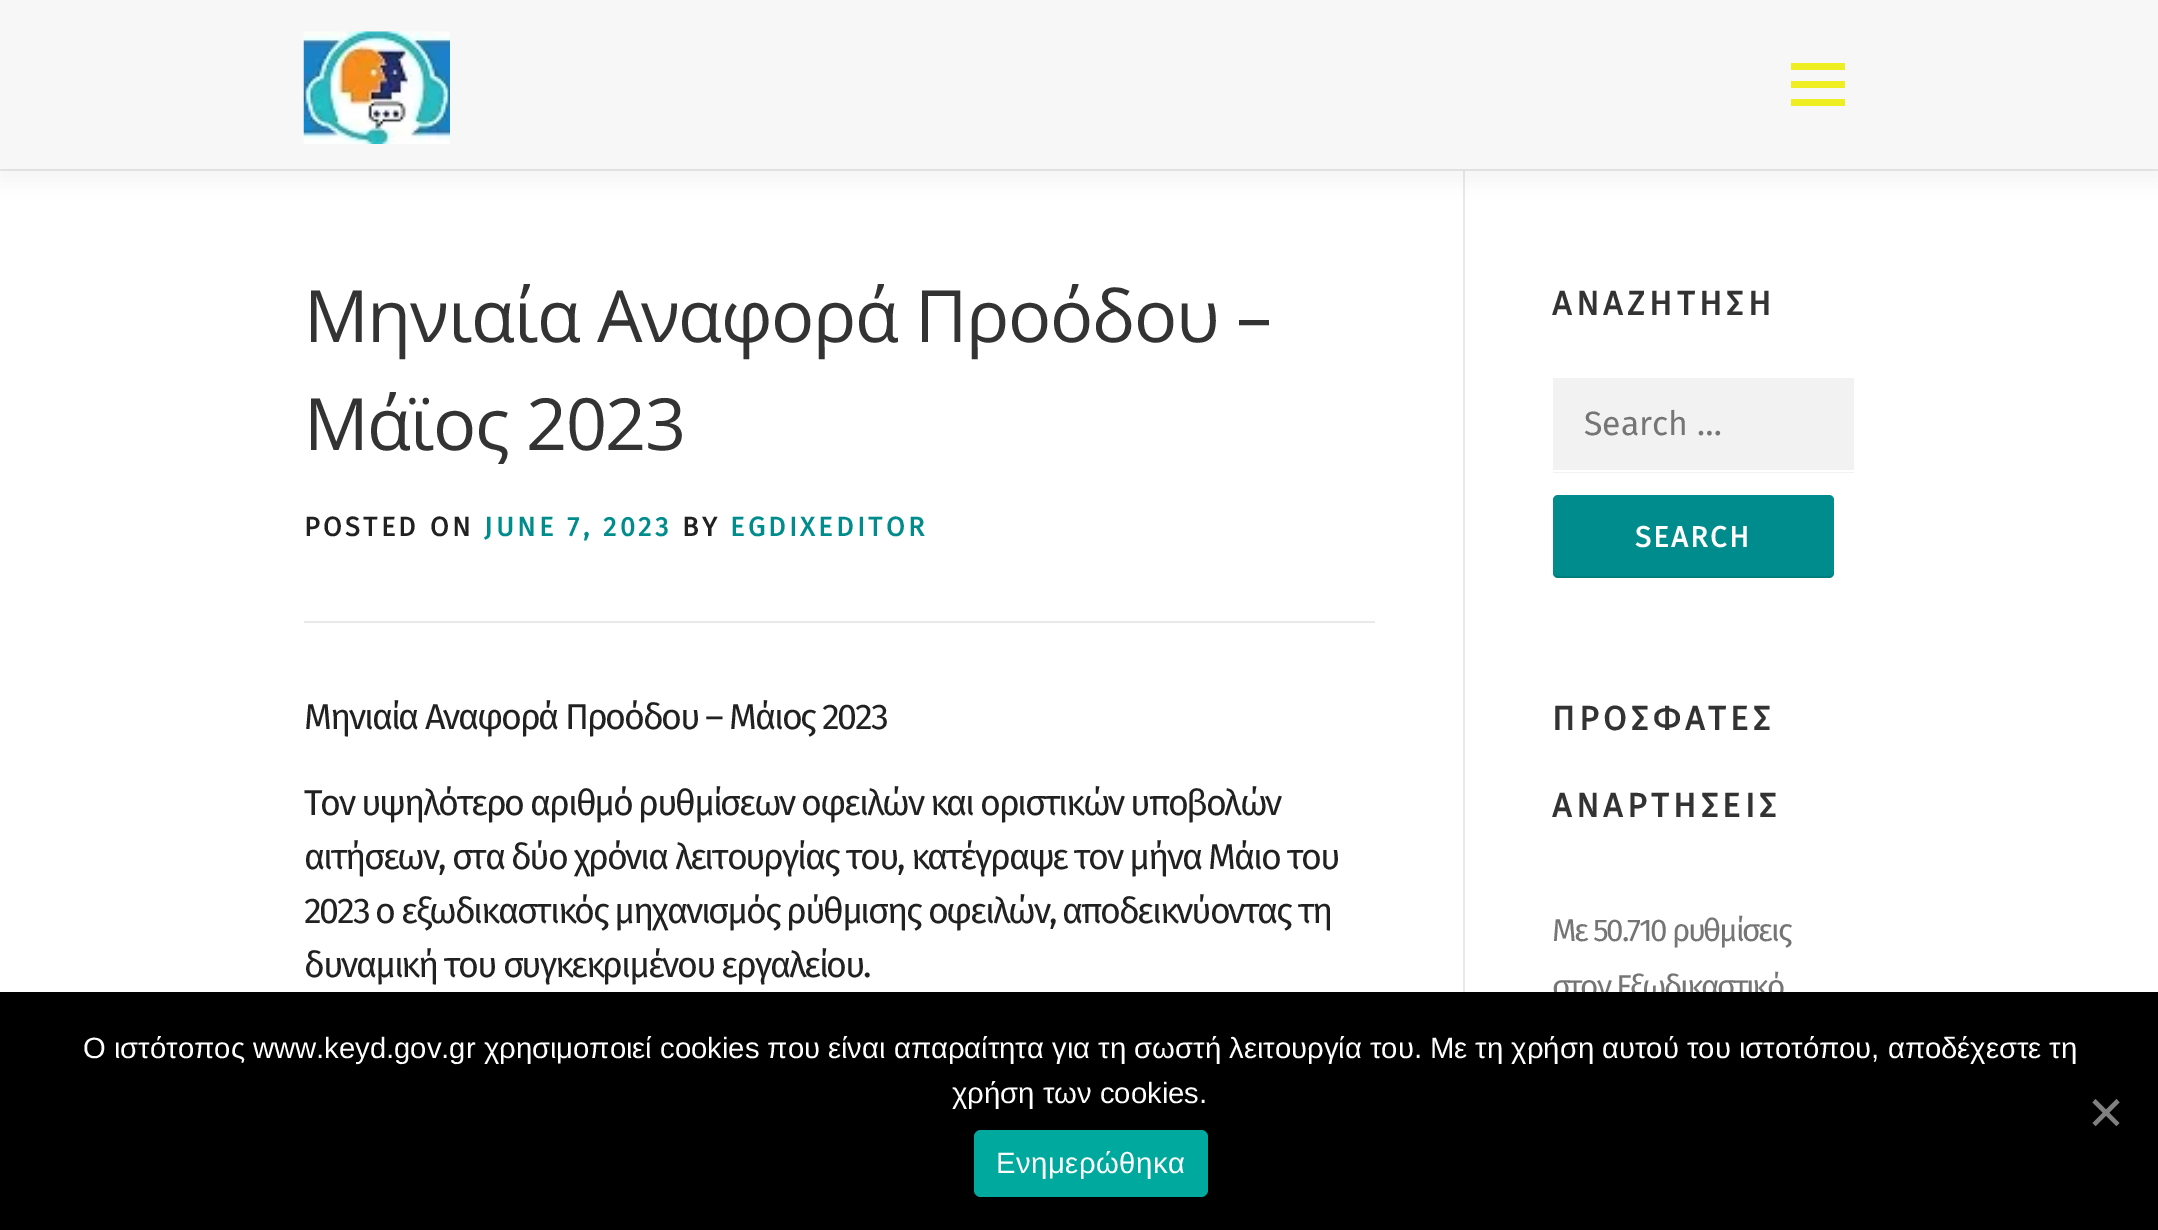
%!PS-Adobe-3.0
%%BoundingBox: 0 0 2158 1230
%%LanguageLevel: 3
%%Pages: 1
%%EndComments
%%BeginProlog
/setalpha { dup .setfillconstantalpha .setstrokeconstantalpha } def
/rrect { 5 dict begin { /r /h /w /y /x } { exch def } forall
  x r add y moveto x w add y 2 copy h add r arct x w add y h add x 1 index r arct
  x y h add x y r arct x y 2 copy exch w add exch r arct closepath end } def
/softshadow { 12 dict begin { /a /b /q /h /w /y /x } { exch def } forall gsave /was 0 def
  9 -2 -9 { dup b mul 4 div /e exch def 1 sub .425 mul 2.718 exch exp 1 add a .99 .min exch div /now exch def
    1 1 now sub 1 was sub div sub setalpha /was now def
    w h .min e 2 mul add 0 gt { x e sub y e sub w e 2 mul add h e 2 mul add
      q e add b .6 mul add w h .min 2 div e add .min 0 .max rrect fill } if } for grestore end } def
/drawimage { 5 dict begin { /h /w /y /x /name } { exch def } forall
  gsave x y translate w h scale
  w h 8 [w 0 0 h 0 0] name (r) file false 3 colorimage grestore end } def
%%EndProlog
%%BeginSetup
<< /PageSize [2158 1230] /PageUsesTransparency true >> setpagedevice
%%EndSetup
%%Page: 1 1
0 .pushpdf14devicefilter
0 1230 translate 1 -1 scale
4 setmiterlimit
1 setgray
0 0 2158 1230 rectfill
0.914 setgray
0 169 2158 2 rectfill
1463 171 2 821 rectfill
0.196 setgray
0 11 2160 169 0 11 0.06 softshadow
0.969 setgray
0 0 2158 169 rectfill
(images/1.raw) 303 31 147 113 drawimage
0.933 0.933 0.133 setrgbcolor
1791 81 54 7 rectfill
1791 63 54 7 rectfill
1791 99 54 7 rectfill
0.914 setgray
304 621 1071 2 rectfill
0.949 setgray
1553 378 301 95 rectfill
1 setgray
1553 470 301 2 rectfill
0 0.549 0.549 setrgbcolor
1553 495 281 83 5 rrect fill
0.1 setalpha
0 setgray
newpath 1553 574 moveto 1554 576 1556 578 1558 578 curveto 1829 578 lineto 1832 578 1834 576 1834 573 curveto 1834 572 lineto 1834 574 1832 576 1829 576 curveto 1557 576 lineto 1556 576 1554 575 1553 574 curveto closepath fill
/OpenSans-Regular [72 0 0 -72 0 0] selectfont
1 setalpha
0.2 setgray
304 342 moveto -1.35 0 (Μηνιαία Αναφορά Προόδου –) ashow
304 450 moveto -1.35 0 (Μάϊος 2023) ashow
/FiraSans-Bold [27 0 0 -27 0 0] selectfont
0.129 setgray
304 536 moveto 3.4 0 (POSTED ON) ashow
0 0.549 0.549 setrgbcolor
484 536 moveto 3.4 0 (JUNE 7, 2023) ashow
0.129 setgray
682 536 moveto 3.4 0 (BY) ashow
0 0.549 0.549 setrgbcolor
730 536 moveto 3.4 0 (EGDIXEDITOR) ashow
/FiraSans-Regular [35.85 0 0 -35.85 0 0] selectfont
0.129 setgray
304 729 moveto -2.25 0 (Μηνιαία Αναφορά Προόδου – Μάιος 2023) ashow
304 815 moveto -0.25 0 32 -2.25 0 (Τον υψηλότερο αριθμό ρυθμίσεων οφειλών και οριστικών υποβολών) awidthshow
304 869 moveto -2.25 0 (αιτήσεων, στα δύο χρόνια λειτουργίας του, κατέγραψε τον μήνα Μάιο του) ashow
304 923 moveto -0.25 0 32 -2.25 0 (2023 ο εξωδικαστικός μηχανισμός ρύθμισης οφειλών, αποδεικνύοντας τη) awidthshow
304 977 moveto -2.25 0 (δυναμική του συγκεκριμένου εργαλείου.) ashow
/FiraSans-Bold [33.75 0 0 -33.75 0 0] selectfont
0.2 setgray
1552 315 moveto 4.5 0 (ΑΝΑΖΗΤΗΣΗ) ashow
/FiraSans-Regular [33.75 0 0 -33.75 0 0] selectfont
0.459 setgray
1584 435 moveto (Search …) show
/FiraSans-Bold [29.25 0 0 -29.25 0 0] selectfont
1 setgray
1635 547 moveto 2.25 0 (SEARCH) ashow
/FiraSans-Bold [33.75 0 0 -33.75 0 0] selectfont
0.2 setgray
1552 730 moveto 4.5 0 (ΠΡΟΣΦΑΤΕΣ) ashow
1552 817 moveto 4.5 0 (ΑΝΑΡΤΗΣΕΙΣ) ashow
/FiraSans-Regular [31.5 0 0 -31.5 0 0] selectfont
0.459 setgray
1552 941 moveto -2.25 0 (Με 50.710 ρυθμίσεις) ashow
1552 997 moveto -2.25 0 (στον Εξωδικαστικό) ashow
0 setgray
0 992 2158 238 rectfill
/LiberationSans-Regular [29.25 0 0 -29.25 0 0] selectfont
1 setgray
83 1058 moveto (Ο ιστότοπος www.keyd.gov.gr χρησιμοποιεί cookies που είναι απαραίτητα για τη σωστή λειτουργία του. Με τη χρήση αυτού του ιστοτόπου, αποδέχεστε τη) show
952 1103 moveto (χρήση των cookies.) show
0.502 setgray
newpath 2116.5 1099 moveto 2119.5 1102.5 lineto 2095.5 1126 lineto 2092.5 1123 lineto closepath fill
newpath 2092.5 1102.5 moveto 2095.5 1099 lineto 2119.5 1123 lineto 2116.5 1126 lineto closepath fill
0 0.663 0.616 setrgbcolor
974 1130 234 67 7 rrect fill
1 setgray
996 1173 moveto 0.5 0 (Ενημερώθηκα) ashow
.poppdf14devicefilter showpage
%%EOF
